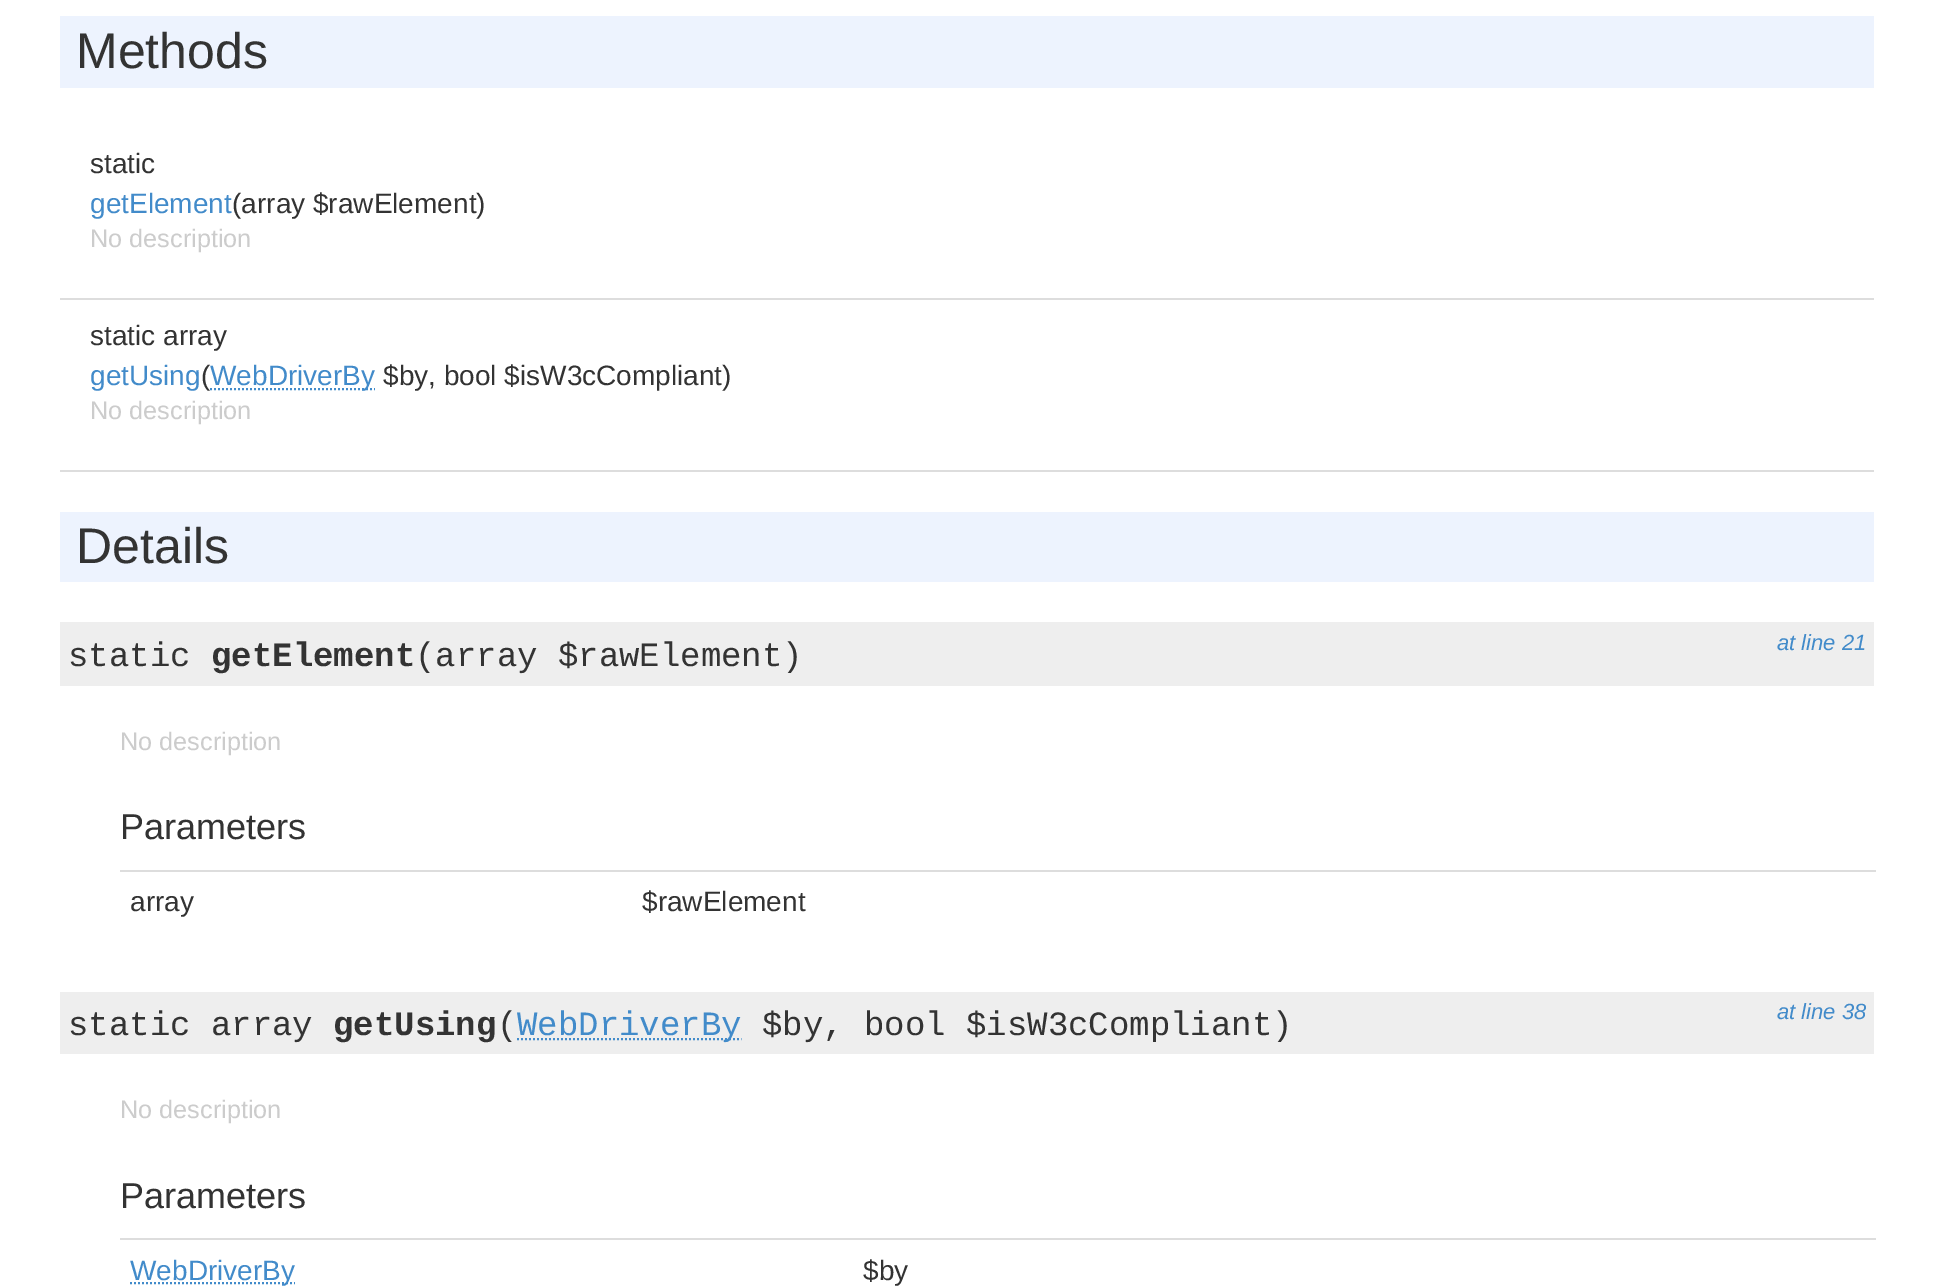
%!PS-Adobe-3.0
%%BoundingBox: 0 0 1934 1288
%%LanguageLevel: 3
%%Pages: 1
%%EndComments
%%BeginProlog
%%EndProlog
%%BeginSetup
<< /PageSize [1934 1288] >> setpagedevice
%%EndSetup
%%Page: 1 1
0 1288 translate 1 -1 scale
4 setmiterlimit
1 setgray
0 0 1934 1288 rectfill
0.929 0.953 0.996 setrgbcolor
60 16 1814 72 rectfill
0.867 setgray
60 298 1814 2 rectfill
60 470 1814 2 rectfill
0.259 0.545 0.792 setrgbcolor
2 setlinewidth
[2 2] 0 setdash
newpath 210 389 moveto 375 389 lineto stroke
0.929 0.953 0.996 setrgbcolor
60 512 1814 70 rectfill
0.933 setgray
60 622 1814 64 rectfill
0.867 setgray
120 870 1756 2 rectfill
0.933 setgray
60 992 1814 62 rectfill
0.259 0.545 0.792 setrgbcolor
newpath 517 1039 moveto 741.5 1039 lineto stroke
0.867 setgray
120 1238 1756 2 rectfill
0.259 0.545 0.792 setrgbcolor
newpath 130 1283 moveto 295 1283 lineto stroke
/LiberationSans-Regular [50 0 0 -50 0 0] selectfont
0.2 setgray
76 68 moveto (Methods) show
/LiberationSans-Regular [28 0 0 -28 0 0] selectfont
90 173 moveto (static) show
0.259 0.545 0.792 setrgbcolor
90 213 moveto (getElement) show
0.2 setgray
232 213 moveto (\(array $rawElement\)) show
/LiberationSans-Regular [25.25 0 0 -25.25 0 0] selectfont
0.8 setgray
90 247 moveto (No description) show
/LiberationSans-Regular [28 0 0 -28 0 0] selectfont
0.2 setgray
90 345 moveto (static array) show
0.259 0.545 0.792 setrgbcolor
90 385 moveto (getUsing) show
0.2 setgray
201 385 moveto (\() show
0.259 0.545 0.792 setrgbcolor
210 385 moveto (WebDriverBy) show
0.2 setgray
383 385 moveto ($by, bool $isW3cCompliant\)) show
/LiberationSans-Regular [25.25 0 0 -25.25 0 0] selectfont
0.8 setgray
90 419 moveto (No description) show
/LiberationSans-Regular [50 0 0 -50 0 0] selectfont
0.2 setgray
76 563 moveto (Details) show
/LiberationMono-Regular [34 0 0 -34 0 0] selectfont
68 666 moveto (static) show
/LiberationMono-Bold [34 0 0 -34 0 0] selectfont
211 666 moveto (getElement) show
/LiberationMono-Regular [34 0 0 -34 0 0] selectfont
415 666 moveto (\(array $rawElement\)) show
/LiberationSans-Italic [22 0 0 -22 0 0] selectfont
0.259 0.545 0.792 setrgbcolor
1777 650 moveto (at line 21) show
/LiberationSans-Regular [25.25 0 0 -25.25 0 0] selectfont
0.8 setgray
120 750 moveto (No description) show
/LiberationSans-Regular [36 0 0 -36 0 0] selectfont
0.2 setgray
120 839 moveto (Parameters) show
/LiberationSans-Regular [28 0 0 -28 0 0] selectfont
130 911 moveto (array) show
642 911 moveto ($rawElement) show
/LiberationMono-Regular [34 0 0 -34 0 0] selectfont
68 1035 moveto (static array) show
/LiberationMono-Bold [34 0 0 -34 0 0] selectfont
333 1035 moveto (getUsing) show
/LiberationMono-Regular [34 0 0 -34 0 0] selectfont
497 1035 moveto (\() show
0.259 0.545 0.792 setrgbcolor
517 1035 moveto (WebDriverBy) show
0.2 setgray
762 1035 moveto ($by, bool $isW3cCompliant\)) show
/LiberationSans-Italic [22 0 0 -22 0 0] selectfont
0.259 0.545 0.792 setrgbcolor
1777 1019 moveto (at line 38) show
/LiberationSans-Regular [25.25 0 0 -25.25 0 0] selectfont
0.8 setgray
120 1118 moveto (No description) show
/LiberationSans-Regular [36 0 0 -36 0 0] selectfont
0.2 setgray
120 1208 moveto (Parameters) show
/LiberationSans-Regular [28 0 0 -28 0 0] selectfont
0.259 0.545 0.792 setrgbcolor
130 1280 moveto (WebDriverBy) show
0.2 setgray
863 1280 moveto ($by) show
showpage
%%EOF
